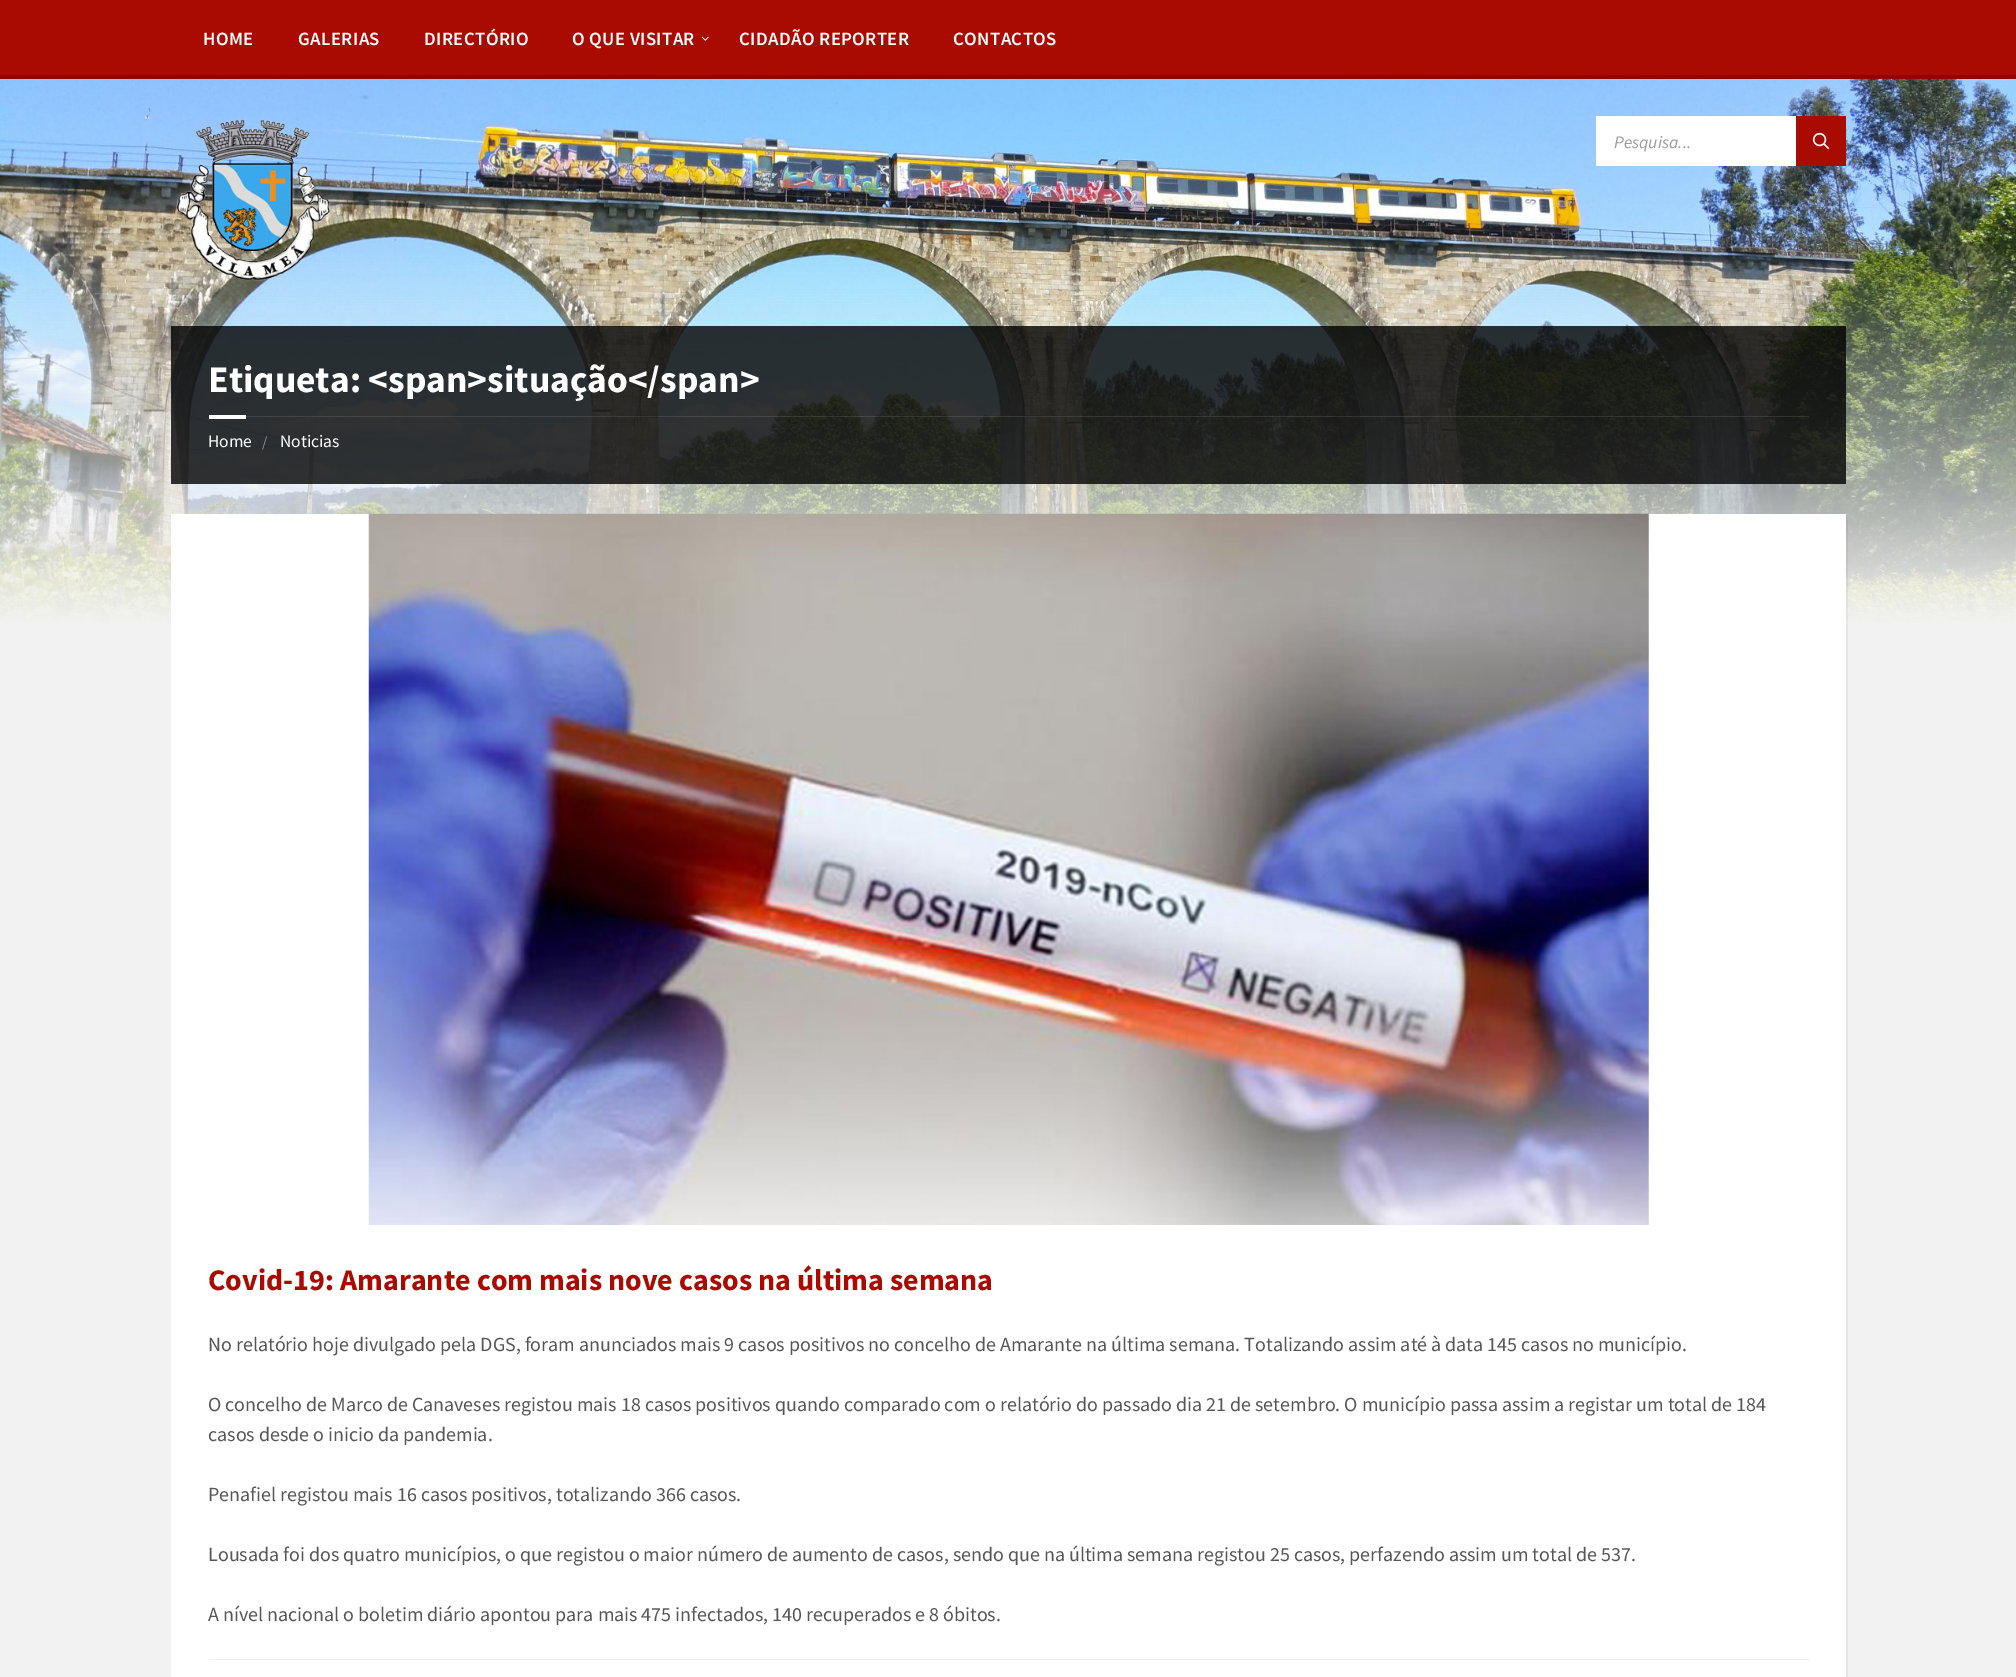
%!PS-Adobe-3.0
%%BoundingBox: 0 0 2016 1677
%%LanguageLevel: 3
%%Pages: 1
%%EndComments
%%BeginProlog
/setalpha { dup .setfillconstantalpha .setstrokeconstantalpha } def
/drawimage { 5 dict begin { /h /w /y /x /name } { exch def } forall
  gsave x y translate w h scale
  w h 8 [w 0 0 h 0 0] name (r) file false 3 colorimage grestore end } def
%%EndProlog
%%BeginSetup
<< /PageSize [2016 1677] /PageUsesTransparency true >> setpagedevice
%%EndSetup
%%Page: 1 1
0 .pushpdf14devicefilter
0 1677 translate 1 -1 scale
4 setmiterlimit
0.949 setgray
0 0 2016 1677 rectfill
0.667 0.043 0 setrgbcolor
0 0 2016 75 rectfill
0.533 0.035 0 setrgbcolor
0 75 2016 4 rectfill
(images/1.raw) 701 36 8 5 drawimage
(images/4.raw) 0 79 2016 546 drawimage
(images/2.raw) 174 117 157 165 drawimage
1 setgray
1596 116 200 50 rectfill
0.667 0.043 0 setrgbcolor
1796 116 50 50 rectfill
(images/3.raw) 1812 132 18 18 drawimage
0.8 setalpha
0 setgray
171 326 1675 158 rectfill
0.1 setalpha
1 setgray
246 416 1563 1 rectfill
1 setalpha
209 415 37 4 rectfill
0.05 setalpha
0 setgray
newpath 173 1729 moveto 173 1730 lineto 1848 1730 lineto 1848 515 lineto 1846 515 lineto 1846 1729 lineto closepath fill
1 setalpha
1 setgray
171 514 1675 1163 rectfill
(images/5.raw) 368 513 1281 712 drawimage
0.941 setgray
209 1659 1600 1 rectfill
/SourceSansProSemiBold-SemiBold [18.75 0 0 -18.75 0 0] selectfont
1 setgray
203 45 moveto 0.4 0 (HOME) ashow
298 45 moveto 0.4 0 (GALERIAS) ashow
424 45 moveto 0.4 0 (DIRECTÓRIO) ashow
572 45 moveto 0.4 0 (O QUE VISITAR) ashow
739 45 moveto 0.4 0 (CIDADÃO REPORTER) ashow
953 45 moveto 0.4 0 (CONTACTOS) ashow
/SourceSansPro-Italic [17.5 0 0 -17.5 0 0] selectfont
0.604 setgray
1614 148 moveto (Pesquisa...) show
/SourceSansPro-Bold [37.5 0 0 -37.5 0 0] selectfont
1 setgray
208 392 moveto (Etiqueta: <span>situação</span>) show
/SourceSansPro-Regular [17.5 0 0 -17.5 0 0] selectfont
208 447 moveto (Home) show
/SourceSansPro-Regular [15 0 0 -15 0 0] selectfont
0.541 0.58 0.608 setrgbcolor
262 447 moveto (/) show
/SourceSansPro-Regular [17.5 0 0 -17.5 0 0] selectfont
1 setgray
280 447 moveto (Noticias) show
/SourceSansPro-Bold [30 0 0 -30 0 0] selectfont
0.667 0.043 0 setrgbcolor
208 1290 moveto (Covid-19: Amarante com mais nove casos na última semana) show
/SourceSansPro-Regular [20 0 0 -20 0 0] selectfont
0.337 setgray
208 1351 moveto (No relatório hoje divulgado pela DGS, foram anunciados mais 9 casos positivos no concelho de Amarante na última semana. Totalizando assim até à data 145 casos no município.) show
208 1411 moveto (O concelho de Marco de Canaveses registou mais 18 casos positivos quando comparado com o relatório do passado dia 21 de setembro. O município passa assim a registar um total de 184) show
208 1441 moveto (casos desde o inicio da pandemia.) show
208 1501 moveto (Penafiel registou mais 16 casos positivos, totalizando 366 casos.) show
208 1561 moveto (Lousada foi dos quatro municípios, o que registou o maior número de aumento de casos, sendo que na última semana registou 25 casos, perfazendo assim um total de 537.) show
208 1621 moveto (A nível nacional o boletim diário apontou para mais 475 infectados, 140 recuperados e 8 óbitos.) show
.poppdf14devicefilter showpage
%%EOF
